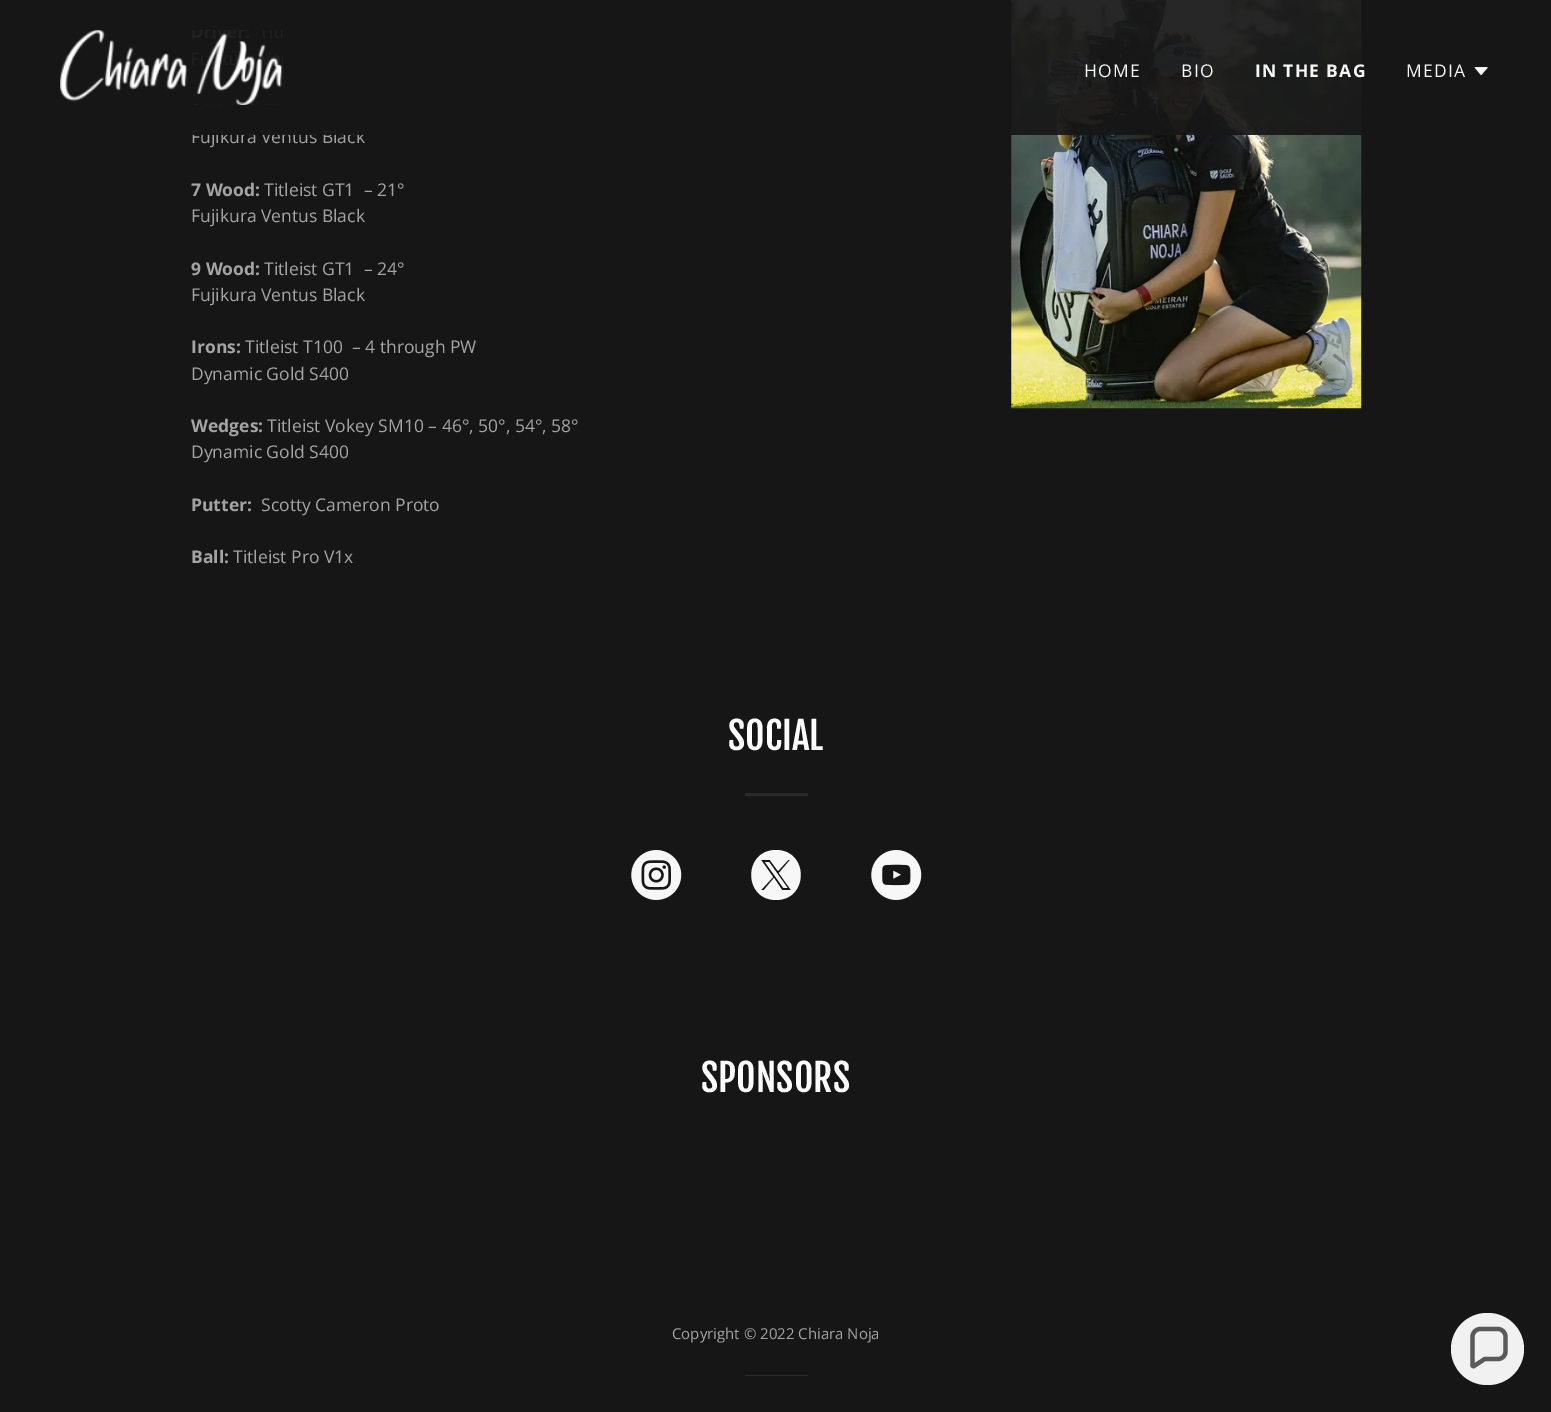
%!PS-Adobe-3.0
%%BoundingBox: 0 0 1551 1412
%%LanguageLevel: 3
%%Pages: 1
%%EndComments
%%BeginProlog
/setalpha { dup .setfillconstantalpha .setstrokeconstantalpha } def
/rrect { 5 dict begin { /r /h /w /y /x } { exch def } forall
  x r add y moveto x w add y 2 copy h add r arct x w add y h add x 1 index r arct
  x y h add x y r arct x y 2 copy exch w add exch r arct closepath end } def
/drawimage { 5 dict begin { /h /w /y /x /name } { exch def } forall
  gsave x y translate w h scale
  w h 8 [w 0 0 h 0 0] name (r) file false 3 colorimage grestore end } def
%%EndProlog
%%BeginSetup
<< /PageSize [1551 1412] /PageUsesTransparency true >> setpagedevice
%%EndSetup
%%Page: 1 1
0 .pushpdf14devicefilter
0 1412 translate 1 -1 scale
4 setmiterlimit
0.086 setgray
0 0 1551 1412 rectfill
(images/2.raw) 1474 67 14 9 drawimage
(images/3.raw) 1011 0 351 409 drawimage
0.165 setgray
745 793 63 3 rectfill
(images/4.raw) 631 850 51 50 drawimage
0.969 setgray
newpath 783.5 888 moveto 765 862 lineto 769 862 lineto 787.5 888 lineto closepath fill
newpath 776 900 moveto 809 900 809 850 776 850 curveto 743 850 743 900 776 900 curveto closepath 773 877 moveto 761 860 lineto 770 860 lineto 778 871 lineto 788 860 lineto 790 860 lineto 779 873 lineto 791 890 lineto 782 890 lineto 774 878 lineto 764 890 lineto 761 890 lineto closepath eofill
(images/5.raw) 871 850 51 50 drawimage
0.165 setgray
745 1375 63 1 rectfill
0.945 setgray
1451 1313 73 72 36 rrect fill
0.353 setgray
4.2 setlinewidth
newpath 1498 1329 moveto 1480 1329 lineto 1476 1329 1472.5 1332.5 1472.5 1336.5 curveto 1472.5 1365.5 lineto 1472.5 1366 1473.5 1366.5 1474 1366 curveto 1482.5 1360.5 lineto 1483.5 1359.5 1484.5 1359 1485.5 1359 curveto 1498 1359 lineto 1502 1359 1505.5 1356 1505.5 1351.5 curveto 1505.5 1336.5 lineto 1505.5 1332.5 1502 1329 1498 1329 curveto closepath stroke
/OpenSans-Regular [17.5 0 0 -17.5 0 0] selectfont
0.969 setgray
1406 77 moveto 1.25 0 (MEDIA) ashow
0.643 setgray
191 143 moveto (Fujikura Ventus Black) show
0.9 setalpha
0.086 setgray
192 0 1170 135 rectfill
0.25 setalpha
193 0 1168 135 rectfill
/OpenSans-Bold [17.5 0 0 -17.5 0 0] selectfont
1 setalpha
0.969 setgray
1255 77 moveto 1.25 0 (IN THE BAG) ashow
/OpenSans-Regular [17.5 0 0 -17.5 0 0] selectfont
1181 77 moveto 1.25 0 (BIO) ashow
1084 77 moveto 1.25 0 (HOME) ashow
(images/1.raw) 60 30 223 75 drawimage
/OpenSans-Bold [17.5 0 0 -17.5 0 0] selectfont
0.643 setgray
191 196 moveto (7 Wood:) show
/OpenSans-Regular [17.5 0 0 -17.5 0 0] selectfont
264 196 moveto (Titleist GT1  – 21°) show
191 222 moveto (Fujikura Ventus Black) show
/OpenSans-Bold [17.5 0 0 -17.5 0 0] selectfont
191 275 moveto (9 Wood:) show
/OpenSans-Regular [17.5 0 0 -17.5 0 0] selectfont
264 275 moveto (Titleist GT1  – 24°) show
191 301 moveto (Fujikura Ventus Black) show
/OpenSans-Bold [17.5 0 0 -17.5 0 0] selectfont
191 353 moveto (Irons:) show
/OpenSans-Regular [17.5 0 0 -17.5 0 0] selectfont
245 353 moveto (Titleist T100  – 4 through PW) show
191 380 moveto (Dynamic Gold S400) show
/OpenSans-Bold [17.5 0 0 -17.5 0 0] selectfont
191 432 moveto (Wedges:) show
/OpenSans-Regular [17.5 0 0 -17.5 0 0] selectfont
267 432 moveto (Titleist Vokey SM10 – 46°, 50°, 54°, 58°) show
191 458 moveto (Dynamic Gold S400) show
/OpenSans-Bold [17.5 0 0 -17.5 0 0] selectfont
191 511 moveto (Putter:) show
/OpenSans-Regular [17.5 0 0 -17.5 0 0] selectfont
261 511 moveto (Scotty Cameron Proto) show
/OpenSans-Bold [17.5 0 0 -17.5 0 0] selectfont
191 563 moveto (Ball:) show
/OpenSans-Regular [17.5 0 0 -17.5 0 0] selectfont
233 563 moveto (Titleist Pro V1x) show
/FjallaOne-Regular [37.5 0 0 -37.5 0 0] selectfont
0.992 setgray
728 750 moveto (SOCIAL) show
701 1092 moveto (SPONSORS) show
/OpenSans-Regular [15 0 0 -15 0 0] selectfont
0.643 setgray
672 1339 moveto (Copyright © 2022 Chiara Noja) show
.poppdf14devicefilter showpage
%%EOF
